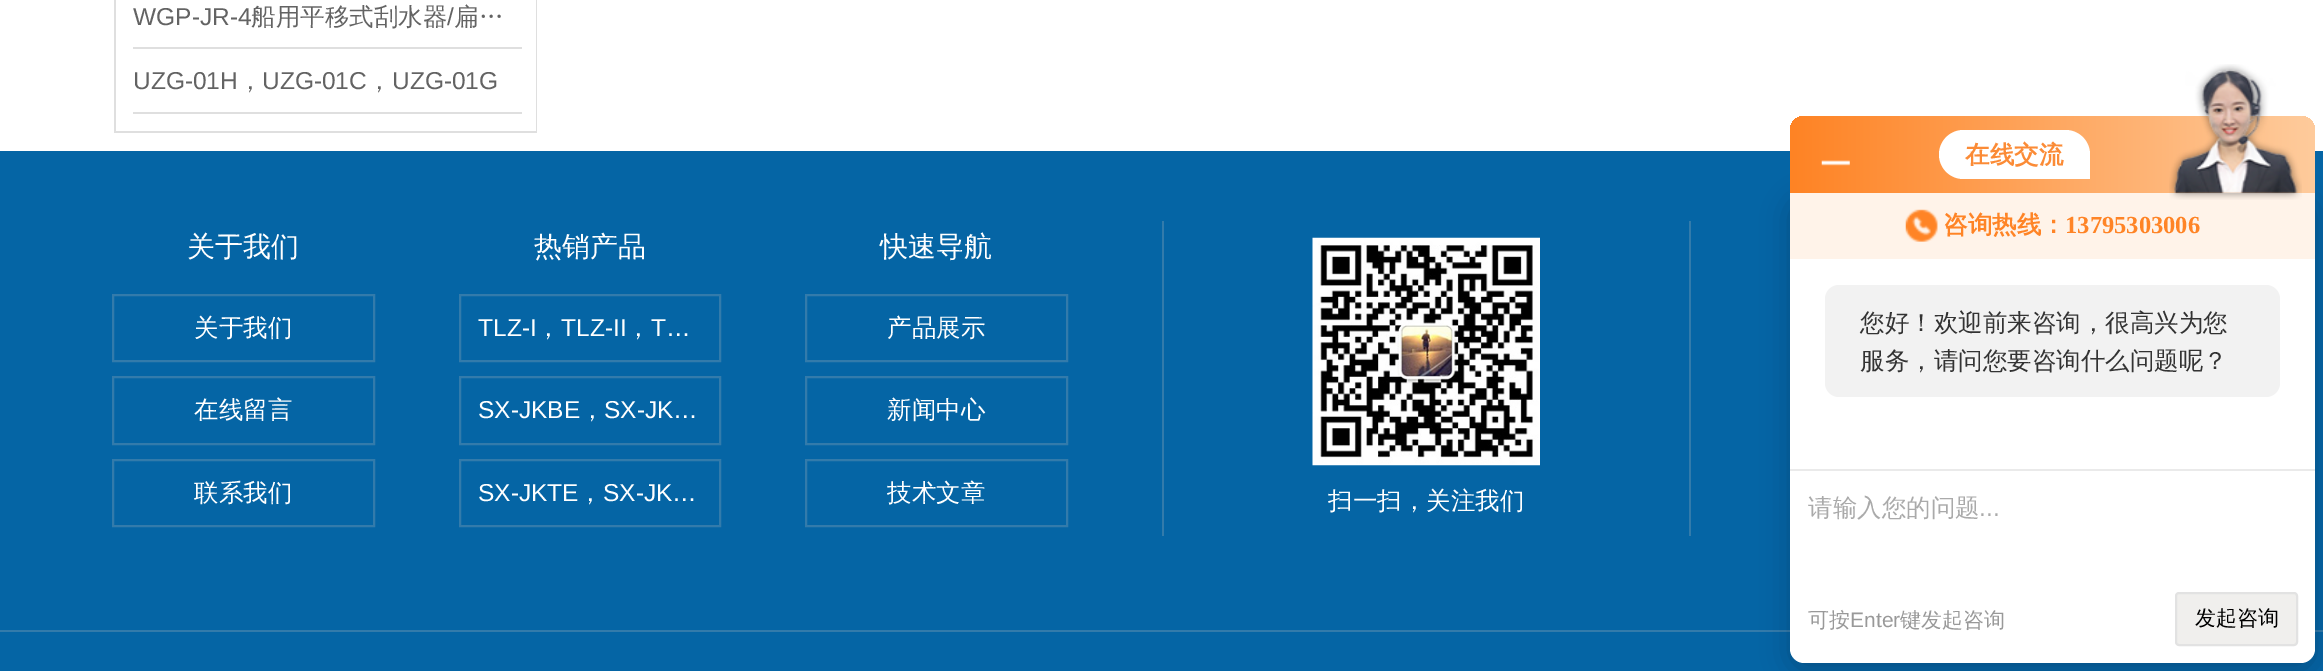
%!PS-Adobe-3.0
%%BoundingBox: 0 0 2323 671
%%LanguageLevel: 3
%%Pages: 1
%%EndComments
%%BeginProlog
/setalpha { dup .setfillconstantalpha .setstrokeconstantalpha } def
/rrect { 5 dict begin { /r /h /w /y /x } { exch def } forall
  x r add y moveto x w add y 2 copy h add r arct x w add y h add x 1 index r arct
  x y h add x y r arct x y 2 copy exch w add exch r arct closepath end } def
/softshadow { 12 dict begin { /a /b /q /h /w /y /x } { exch def } forall gsave /was 0 def
  9 -2 -9 { dup b mul 4 div /e exch def 1 sub .425 mul 2.718 exch exp 1 add a .99 .min exch div /now exch def
    1 1 now sub 1 was sub div sub setalpha /was now def
    w h .min e 2 mul add 0 gt { x e sub y e sub w e 2 mul add h e 2 mul add
      q e add b .6 mul add w h .min 2 div e add .min 0 .max rrect fill } if } for grestore end } def
/drawimage { 5 dict begin { /h /w /y /x /name } { exch def } forall
  gsave x y translate w h scale
  w h 8 [w 0 0 h 0 0] name (r) file false 3 colorimage grestore end } def
%%EndProlog
%%BeginSetup
<< /PageSize [2323 671] /PageUsesTransparency true >> setpagedevice
%%EndSetup
%%Page: 1 1
0 .pushpdf14devicefilter
0 671 translate 1 -1 scale
4 setmiterlimit
1 setgray
0 0 2323 671 rectfill
0.875 setgray
536 0 1 133 rectfill
114 131 423 2 rectfill
114 0 2 133 rectfill
133 47 389 2 rectfill
133 112 389 2 rectfill
0.02 0.396 0.647 setrgbcolor
0 151 2323 479 rectfill
0.2 0.482 0.671 setrgbcolor
2 setlinewidth
113 295 261 66 rectstroke
113 377 261 67 rectstroke
113 460 261 66 rectstroke
460 295 260 66 rectstroke
460 377 260 67 rectstroke
460 460 260 66 rectstroke
806 295 261 66 rectstroke
806 377 261 67 rectstroke
806 460 261 66 rectstroke
1689 221 2 315 rectfill
1162 221 2 315 rectfill
(images/1.raw) 1312 237 228 229 drawimage
0.02 0.396 0.647 setrgbcolor
0 632 2323 39 rectfill
0.2 0.482 0.671 setrgbcolor
0 630 2323 2 rectfill
0 setgray
1790 200 525 470 14 14 0.2 softshadow
gsave newpath 1804 116 moveto 2301 116 lineto 2308.5 116 2315 122.5 2315 130 curveto 2315 193 lineto 1790 193 lineto 1790 130 lineto 1790 122.5 1796.5 116 1804 116 curveto closepath clip newpath
<< /ShadingType 2 /ColorSpace /DeviceRGB /Coords [1790 154 2315 154] /Extend [true true] /Function << /FunctionType 2 /Domain [0 1] /C0 [1 0.514 0.141] /C1 [0.996 0.796 0.612] /N 1 >> >> shfill grestore
(images/2.raw) 1821 160 29 6 drawimage
1 setgray
newpath 1963.5 130 moveto 2065.5 130 lineto 2079 130 2090 141 2090 154.5 curveto 2090 179 lineto 1963.5 179 lineto 1950 179 1939 168 1939 154.5 curveto 1939 141 1950 130 1963.5 130 curveto closepath fill
newpath 1790 193 moveto 2315 193 lineto 2315 649 lineto 2315 656.5 2308.5 663 2301 663 curveto 1804 663 lineto 1796.5 663 1790 656.5 1790 649 curveto closepath fill
1 0.953 0.914 setrgbcolor
1790 193 525 66 rectfill
(images/3.raw) 2169 64 133 136 drawimage
(images/4.raw) 1905 209 33 33 drawimage
0.949 setgray
1825 285 455 112 14 rrect fill
0.918 setgray
1790 469 525 2 rectfill
0.941 0.937 0.929 setrgbcolor
2176 593 121 52 3 rrect gsave fill grestore
0.886 setgray
stroke
/LiberationSans-Regular [24.5 0 0 -24.5 0 0] selectfont
0.388 setgray
133 25 moveto (WGP-JR-4) show
/WenQuanYiZenHei-Medium [24.5 0 0 -24.5 0 0] selectfont
251 25 moveto (船用平移式刮水器) show
/LiberationSans-Regular [24.5 0 0 -24.5 0 0] selectfont
447 25 moveto (/) show
/WenQuanYiZenHei-Medium [24.5 0 0 -24.5 0 0] selectfont
454 25 moveto (扁…) show
/LiberationSans-Regular [24.5 0 0 -24.5 0 0] selectfont
133 89 moveto (UZG-01H) show
/WenQuanYiZenHei-Medium [24.5 0 0 -24.5 0 0] selectfont
238 89 moveto (，) show
/LiberationSans-Regular [24.5 0 0 -24.5 0 0] selectfont
262 89 moveto (UZG-01C) show
/WenQuanYiZenHei-Medium [24.5 0 0 -24.5 0 0] selectfont
367 89 moveto (，) show
/LiberationSans-Regular [24.5 0 0 -24.5 0 0] selectfont
392 89 moveto (UZG-01G) show
/WenQuanYiZenHei-Medium [28 0 0 -28 0 0] selectfont
1 setgray
187 256 moveto (关于我们) show
/WenQuanYiZenHei-Medium [24.5 0 0 -24.5 0 0] selectfont
194 336 moveto (关于我们) show
194 418 moveto (在线留言) show
194 501 moveto (联系我们) show
/WenQuanYiZenHei-Medium [28 0 0 -28 0 0] selectfont
534 256 moveto (热销产品) show
/LiberationSans-Regular [24.5 0 0 -24.5 0 0] selectfont
478 336 moveto (TLZ-I) show
/WenQuanYiZenHei-Medium [24.5 0 0 -24.5 0 0] selectfont
536 336 moveto (，) show
/LiberationSans-Regular [24.5 0 0 -24.5 0 0] selectfont
561 336 moveto (TLZ-II) show
/WenQuanYiZenHei-Medium [24.5 0 0 -24.5 0 0] selectfont
626 336 moveto (，) show
/LiberationSans-Regular [24.5 0 0 -24.5 0 0] selectfont
651 336 moveto (T…) show
478 418 moveto (SX-JKBE) show
/WenQuanYiZenHei-Medium [24.5 0 0 -24.5 0 0] selectfont
580 418 moveto (，) show
/LiberationSans-Regular [24.5 0 0 -24.5 0 0] selectfont
604 418 moveto (SX-JK…) show
478 501 moveto (SX-JKTE) show
/WenQuanYiZenHei-Medium [24.5 0 0 -24.5 0 0] selectfont
578 501 moveto (，) show
/LiberationSans-Regular [24.5 0 0 -24.5 0 0] selectfont
603 501 moveto (SX-JK…) show
/WenQuanYiZenHei-Medium [28 0 0 -28 0 0] selectfont
880 256 moveto (快速导航) show
/WenQuanYiZenHei-Medium [24.5 0 0 -24.5 0 0] selectfont
887 336 moveto (产品展示) show
887 418 moveto (新闻中心) show
887 501 moveto (技术文章) show
1328 509 moveto (扫一扫，关注我们) show
/WenQuanYiZenHei-Bold [24.5 0 0 -24.5 0 0] selectfont
0.984 0.545 0.212 setrgbcolor
1965 163 moveto (在线交流) show
1 0.518 0.149 setrgbcolor
1943 233 moveto (咨询热线：) show
/LiberationSerif-Bold [24.5 0 0 -24.5 0 0] selectfont
2065 233 moveto (13795303006) show
/WenQuanYiZenHei-Medium [24.5 0 0 -24.5 0 0] selectfont
0.2 setgray
1860 331 moveto (您好！欢迎前来咨询，很高兴为您) show
1860 369 moveto (服务，请问您要咨询什么问题呢？) show
0.667 setgray
1808 516 moveto (请输入您的问题) show
/LiberationSans-Regular [24.5 0 0 -24.5 0 0] selectfont
1979 516 moveto (...) show
/WenQuanYiZenHei-Medium [21 0 0 -21 0 0] selectfont
0.6 setgray
1808 627 moveto (可按) show
/LiberationSans-Regular [21 0 0 -21 0 0] selectfont
1850 627 moveto (Enter) show
/WenQuanYiZenHei-Medium [21 0 0 -21 0 0] selectfont
1900 627 moveto (键发起咨询) show
0 setgray
2195 625 moveto (发起咨询) show
.poppdf14devicefilter showpage
%%EOF
